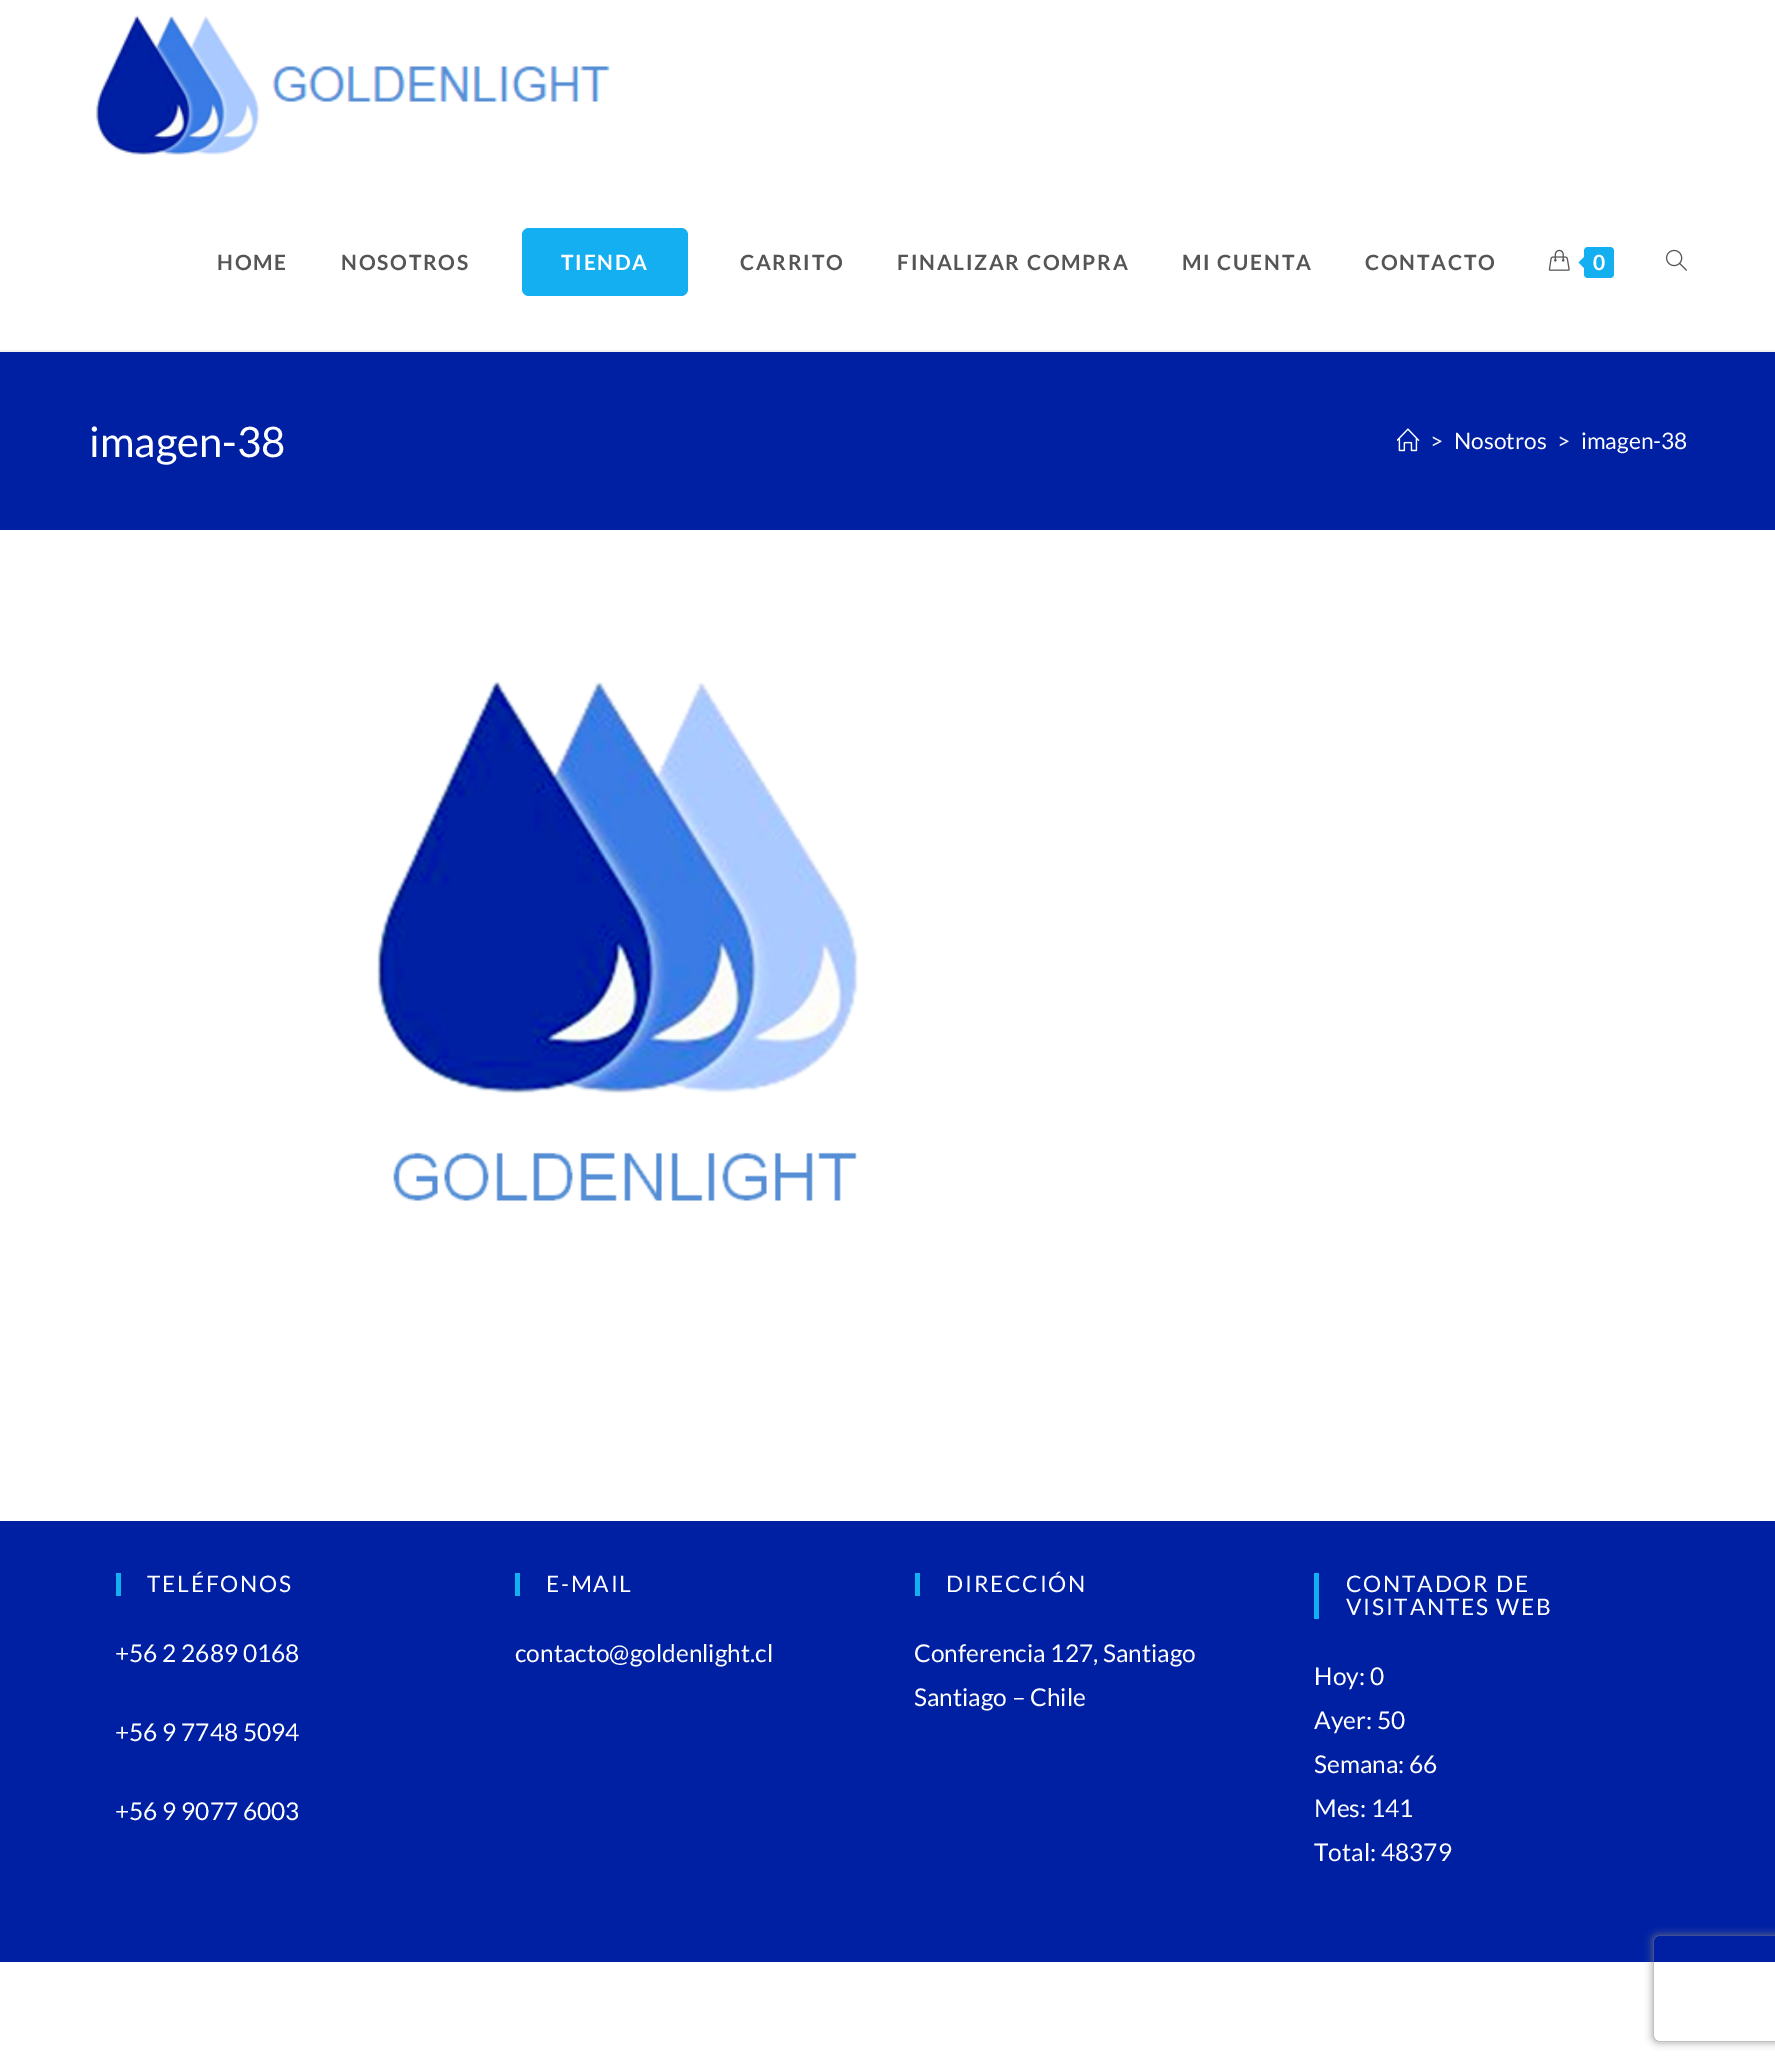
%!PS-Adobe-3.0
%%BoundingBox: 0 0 1775 2064
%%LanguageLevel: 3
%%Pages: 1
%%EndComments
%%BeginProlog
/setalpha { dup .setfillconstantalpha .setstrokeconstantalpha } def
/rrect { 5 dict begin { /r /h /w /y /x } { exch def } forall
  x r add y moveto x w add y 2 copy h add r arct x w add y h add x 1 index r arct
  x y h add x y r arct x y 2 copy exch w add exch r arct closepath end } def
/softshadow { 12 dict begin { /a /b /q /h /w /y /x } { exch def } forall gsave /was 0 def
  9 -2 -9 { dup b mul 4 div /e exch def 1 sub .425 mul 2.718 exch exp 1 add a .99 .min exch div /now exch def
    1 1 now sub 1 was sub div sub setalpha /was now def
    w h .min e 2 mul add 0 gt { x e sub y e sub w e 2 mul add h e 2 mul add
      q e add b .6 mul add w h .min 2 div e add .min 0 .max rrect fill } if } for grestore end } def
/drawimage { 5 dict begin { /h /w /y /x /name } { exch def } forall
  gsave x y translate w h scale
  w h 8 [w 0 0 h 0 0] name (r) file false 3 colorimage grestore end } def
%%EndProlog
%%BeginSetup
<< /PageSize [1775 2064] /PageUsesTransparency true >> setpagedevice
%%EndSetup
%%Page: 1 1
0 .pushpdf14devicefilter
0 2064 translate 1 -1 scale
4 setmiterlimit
1 setgray
0 0 1775 2064 rectfill
0.945 setgray
0 350 1775 2 rectfill
(images/1.raw) 95 15 515 140 drawimage
0.075 0.686 0.941 setrgbcolor
522 228 166 68 7 rrect fill
(images/2.raw) 1548 249 22 22 drawimage
1584 247 30 31 4 rrect fill
newpath 1587 254 moveto 1587 271 lineto 1578.5 262.5 lineto closepath fill
(images/3.raw) 1666 249 21 22 drawimage
0 0.125 0.643 setrgbcolor
0 352 1775 178 rectfill
(images/4.raw) 1397 428 23 24 drawimage
(images/5.raw) 377 681 481 520 drawimage
0 1521 1775 441 rectfill
0.075 0.686 0.941 setrgbcolor
116 1573 5 23 rectfill
515 1573 5 23 rectfill
915 1573 5 23 rectfill
1314 1573 5 46 rectfill
gsave
newpath 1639 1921 moveto 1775 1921 lineto 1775 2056 lineto 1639 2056 lineto closepath 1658 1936 moveto 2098 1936 lineto 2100 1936 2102 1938 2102 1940 curveto 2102 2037 lineto 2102 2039 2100 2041 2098 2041 curveto 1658 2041 lineto 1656 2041 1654 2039 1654 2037 curveto 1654 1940 lineto 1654 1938 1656 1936 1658 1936 curveto closepath eoclip newpath
0.502 setgray
1654 1936 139 105 4 4.5 1 softshadow
grestore
/Lato-Bold [21 0 0 -21 0 0] selectfont
0.333 setgray
217 270 moveto 1.75 0 (HOME) ashow
341 270 moveto 1.75 0 (NOSOTROS) ashow
1 setgray
561 270 moveto 1.75 0 (TIENDA) ashow
0.333 setgray
740 270 moveto 1.75 0 (CARRITO) ashow
897 270 moveto 1.75 0 (FINALIZAR COMPRA) ashow
1182 270 moveto 1.75 0 (MI CUENTA) ashow
1365 270 moveto 1.75 0 (CONTACTO) ashow
1 setgray
1593 270 moveto (0) show
/Lato-Regular [42 0 0 -42 0 0] selectfont
89 457 moveto (imagen-38) show
/Lato-Regular [22.75 0 0 -22.75 0 0] selectfont
0.937 setgray
1430 449 moveto (>) show
1 setgray
1454 449 moveto (Nosotros) show
0.937 setgray
1557 449 moveto (>) show
1 setgray
1581 449 moveto (imagen-38) show
147 1592 moveto 1.75 0 (TELÉFONOS) ashow
/Lato-Regular [24.5 0 0 -24.5 0 0] selectfont
115 1662 moveto (+56 2 2689 0168) show
115 1741 moveto (+56 9 7748 5094) show
115 1820 moveto (+56 9 9077 6003) show
/Lato-Regular [22.75 0 0 -22.75 0 0] selectfont
546 1592 moveto 1.75 0 (E-MAIL) ashow
/Lato-Regular [24.5 0 0 -24.5 0 0] selectfont
515 1662 moveto (contacto@goldenlight.cl) show
/Lato-Regular [22.75 0 0 -22.75 0 0] selectfont
946 1592 moveto 1.75 0 (DIRECCIÓN) ashow
/Lato-Regular [24.5 0 0 -24.5 0 0] selectfont
914 1662 moveto (Conferencia 127, Santiago) show
914 1706 moveto (Santiago – Chile) show
/Lato-Regular [22.75 0 0 -22.75 0 0] selectfont
1346 1592 moveto 1.75 0 (CONTADOR DE) ashow
1346 1615 moveto 1.75 0 (VISITANTES WEB) ashow
/Lato-Regular [24.5 0 0 -24.5 0 0] selectfont
1314 1685 moveto (Hoy: 0) show
1314 1729 moveto (Ayer: 50) show
1314 1773 moveto (Semana: 66) show
1314 1817 moveto (Mes: 141) show
1314 1861 moveto (Total: 48379) show
.poppdf14devicefilter showpage
%%EOF
